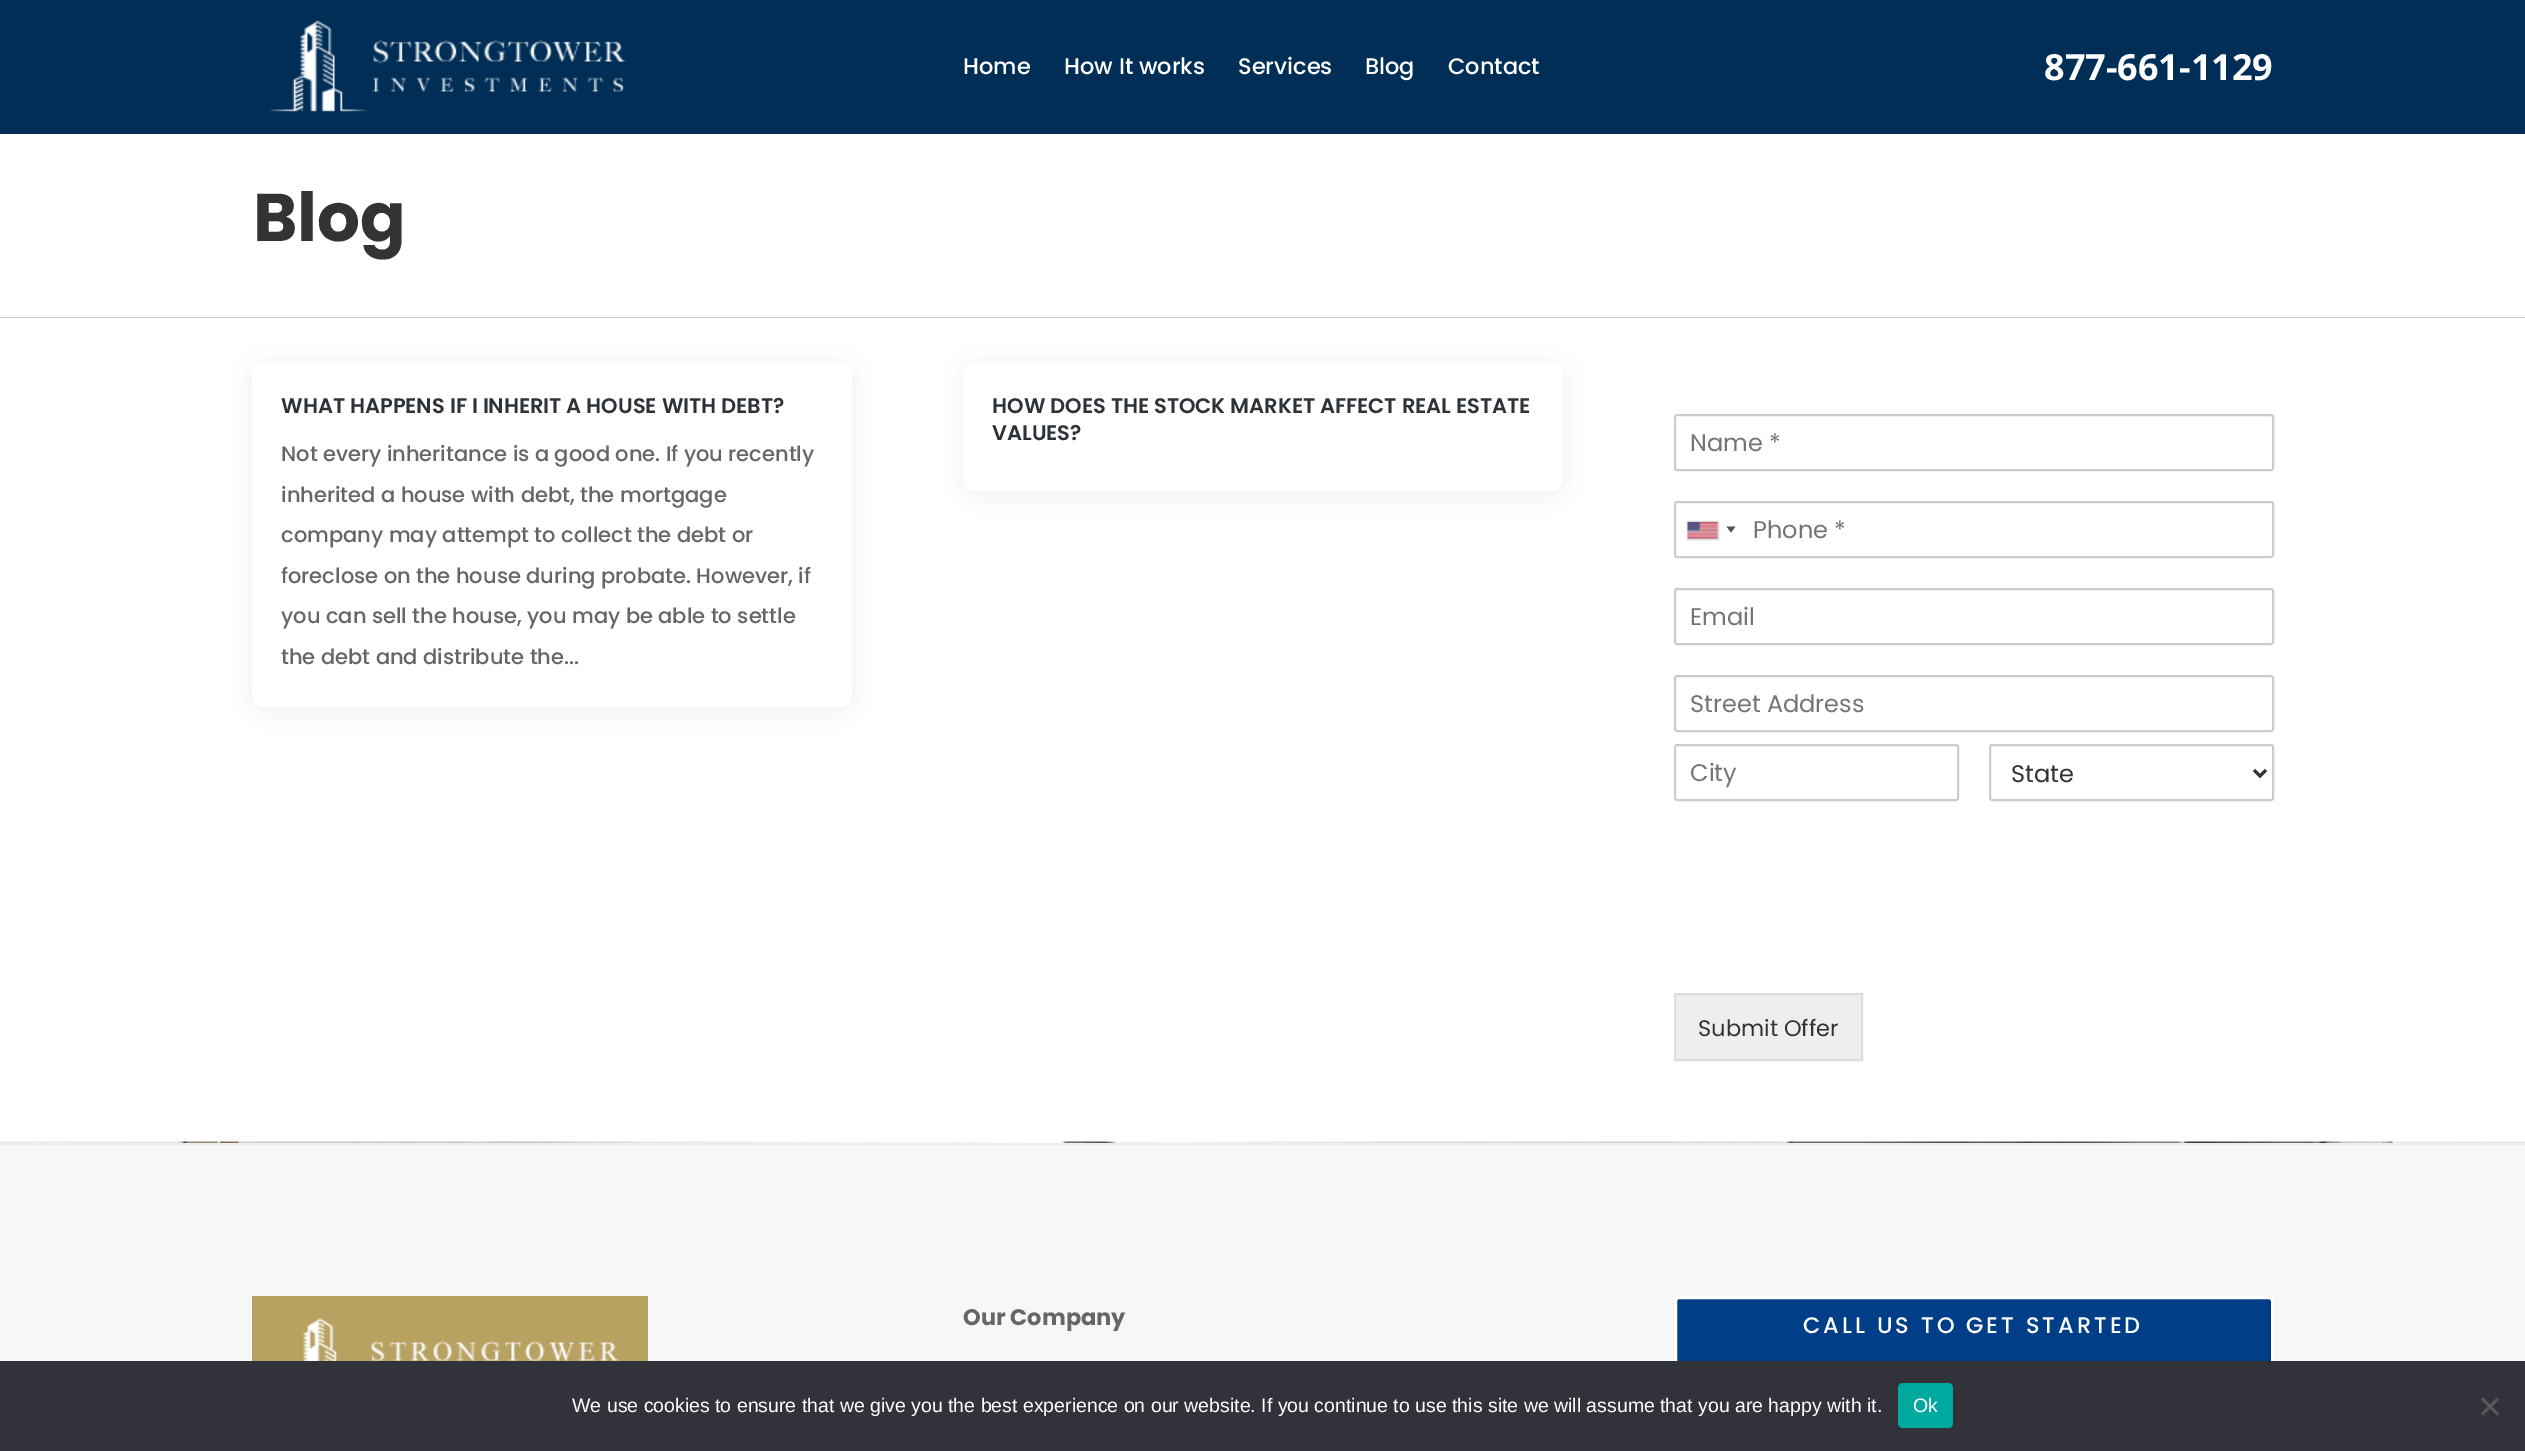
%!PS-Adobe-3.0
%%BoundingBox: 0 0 2525 1451
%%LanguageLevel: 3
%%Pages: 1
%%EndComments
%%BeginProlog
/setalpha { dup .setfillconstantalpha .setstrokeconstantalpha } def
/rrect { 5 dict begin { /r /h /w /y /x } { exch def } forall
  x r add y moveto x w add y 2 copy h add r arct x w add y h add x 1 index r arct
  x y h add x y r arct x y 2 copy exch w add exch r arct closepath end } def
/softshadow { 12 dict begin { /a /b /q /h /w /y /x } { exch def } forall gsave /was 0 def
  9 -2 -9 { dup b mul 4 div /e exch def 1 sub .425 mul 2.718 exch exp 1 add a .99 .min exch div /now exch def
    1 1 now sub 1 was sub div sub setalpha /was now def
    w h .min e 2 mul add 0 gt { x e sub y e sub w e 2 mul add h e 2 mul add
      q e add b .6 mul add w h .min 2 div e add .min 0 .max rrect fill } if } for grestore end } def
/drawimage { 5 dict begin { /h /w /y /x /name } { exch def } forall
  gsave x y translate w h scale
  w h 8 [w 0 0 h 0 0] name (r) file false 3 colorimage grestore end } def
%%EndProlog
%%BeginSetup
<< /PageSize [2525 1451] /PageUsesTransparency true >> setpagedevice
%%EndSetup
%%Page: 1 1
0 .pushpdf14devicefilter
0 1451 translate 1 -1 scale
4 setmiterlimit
1 setgray
0 0 2525 1451 rectfill
0 0.18 0.337 setrgbcolor
0 0 2525 134 rectfill
(images/1.raw) 268 20 358 92 drawimage
0.8 setgray
0 317 2525 1 rectfill
0.776 setgray
252 366 600 344 12 13.5 0.3 softshadow
1 setgray
252 363 600 344 12 rrect fill
0.776 setgray
963 366 600 128 12 13.5 0.3 softshadow
1 setgray
963 363 600 128 12 rrect fill
0.8 setgray
2 setlinewidth
1675 415 598 55 2 rrect stroke
1675 502 598 55 2 rrect stroke
0.533 setgray
1688 522 30 17 0 1 1 softshadow
0.859 setgray
1688 522 30 17 rectfill
(images/2.raw) 1687 522 31 17 drawimage
0.333 setgray
newpath 1726.5 526.5 moveto 1735.5 526.5 lineto 1731 532.5 lineto closepath fill
0.8 setgray
1675 589 598 55 2 rrect stroke
1675 676 598 55 2 rrect stroke
1675 745 283 55 2 rrect stroke
1990 745 283 55 2 rrect stroke
0.2 setgray
3 setlinewidth
newpath 2254 770 moveto 2260 776 lineto 2266 770 lineto stroke
0.933 setgray
newpath 1675 994 moveto 1862 994 lineto 1862 1060 lineto 1675 1060 lineto closepath gsave fill grestore
0.867 setgray
2 setlinewidth
stroke
(images/3.raw) 0 1141 2525 2 drawimage
0.969 setgray
0 1145 2525 216 rectfill
0.933 setgray
0 1143 2525 2 rectfill
(images/4.raw) 252 1296 396 65 drawimage
0 0.247 0.533 setrgbcolor
1675.5 1297.5 597 125 3.5 rrect gsave fill grestore
1 setgray
3 setlinewidth
stroke
0.196 0.196 0.227 setrgbcolor
0 1361 2525 90 rectfill
0 0.663 0.616 setrgbcolor
1898 1383 55 45 5 rrect fill
0.349 0.349 0.365 setrgbcolor
newpath 2497 1397.5 moveto 2499 1399.5 lineto 2483 1415.5 lineto 2481 1413.5 lineto closepath fill
newpath 2481 1399.5 moveto 2483 1397.5 lineto 2499 1413.5 lineto 2497 1415.5 lineto closepath fill
/Poppins-Medium [22.5 0 0 -22.5 0 0] selectfont
1 setgray
963 74 moveto (Home) show
1064 74 moveto (How It works) show
1238 74 moveto (Services) show
1365 74 moveto (Blog) show
1448 74 moveto (Contact) show
/OpenSans-Bold [36 0 0 -36 0 0] selectfont
2044 80 moveto (877-661-1129) show
/Poppins-Bold [67.5 0 0 -67.5 0 0] selectfont
0.2 setgray
253 241 moveto (Blog) show
/Poppins-SemiBold [21 0 0 -21 0 0] selectfont
0.173 0.196 0.22 setrgbcolor
281 413 moveto (WHAT HAPPENS IF I INHERIT A HOUSE WITH DEBT?) show
/Poppins-Medium [21 0 0 -21 0 0] selectfont
0.4 setgray
281 461 moveto (Not every inheritance is a good one. If you recently) show
281 502 moveto (inherited a house with debt, the mortgage) show
281 542 moveto (company may attempt to collect the debt or) show
281 583 moveto (foreclose on the house during probate. However, if) show
281 623 moveto (you can sell the house, you may be able to settle) show
281 664 moveto (the debt and distribute the...) show
/Poppins-SemiBold [21 0 0 -21 0 0] selectfont
0.173 0.196 0.22 setrgbcolor
992 413 moveto (HOW DOES THE STOCK MARKET AFFECT REAL ESTATE) show
992 440 moveto (VALUES?) show
/Poppins-Regular [24 0 0 -24 0 0] selectfont
0.459 setgray
1690 451 moveto (Name *) show
1753 538 moveto (Phone *) show
1690 625 moveto (Email) show
1690 712 moveto (Street Address) show
1690 781 moveto (City) show
0.2 setgray
2011 782 moveto (State) show
/Poppins-Regular [22.5 0 0 -22.5 0 0] selectfont
1698 1036 moveto (Submit Offer) show
/Poppins-Bold [22.5 0 0 -22.5 0 0] selectfont
0.4 setgray
963 1325 moveto (Our Company) show
/Poppins-Medium [22.5 0 0 -22.5 0 0] selectfont
1 setgray
1803 1333 moveto 3 0 (CALL US TO GET STARTED) ashow
/LiberationSans-Regular [19.5 0 0 -19.5 0 0] selectfont
572 1412 moveto (We use cookies to ensure that we give you the best experience on our website. If you continue to use this site we will assume that you are happy with it.) show
1913 1412 moveto (Ok) show
.poppdf14devicefilter showpage
%%EOF
